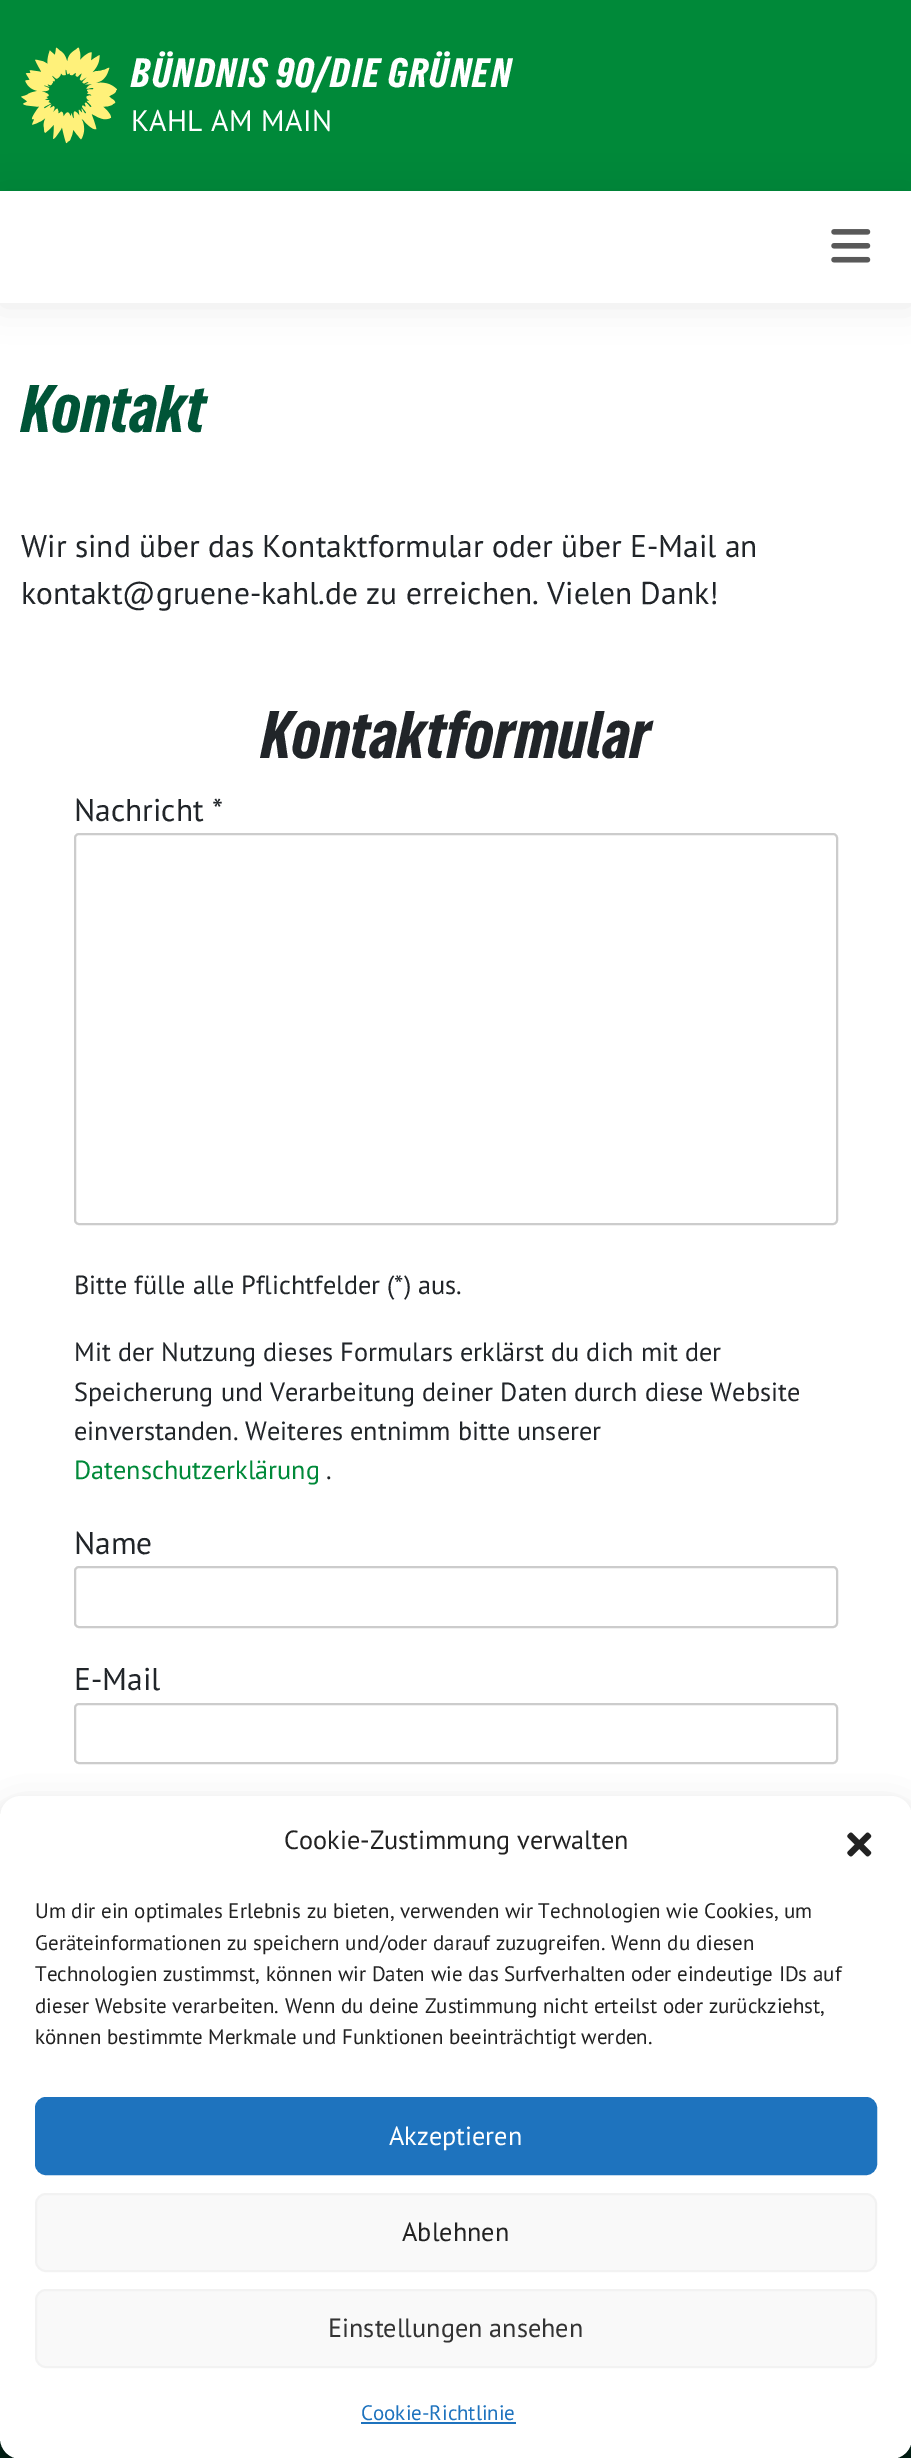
%!PS-Adobe-3.0
%%BoundingBox: 0 0 911 2458
%%LanguageLevel: 3
%%Pages: 1
%%EndComments
%%BeginProlog
/setalpha { dup .setfillconstantalpha .setstrokeconstantalpha } def
/rrect { 5 dict begin { /r /h /w /y /x } { exch def } forall
  x r add y moveto x w add y 2 copy h add r arct x w add y h add x 1 index r arct
  x y h add x y r arct x y 2 copy exch w add exch r arct closepath end } def
/softshadow { 12 dict begin { /a /b /q /h /w /y /x } { exch def } forall gsave /was 0 def
  9 -2 -9 { dup b mul 4 div /e exch def 1 sub .425 mul 2.718 exch exp 1 add a .99 .min exch div /now exch def
    1 1 now sub 1 was sub div sub setalpha /was now def
    w h .min e 2 mul add 0 gt { x e sub y e sub w e 2 mul add h e 2 mul add
      q e add b .6 mul add w h .min 2 div e add .min 0 .max rrect fill } if } for grestore end } def
/drawimage { 5 dict begin { /h /w /y /x /name } { exch def } forall
  gsave x y translate w h scale
  w h 8 [w 0 0 h 0 0] name (r) file false 3 colorimage grestore end } def
%%EndProlog
%%BeginSetup
<< /PageSize [911 2458] /PageUsesTransparency true >> setpagedevice
%%EndSetup
%%Page: 1 1
0 .pushpdf14devicefilter
0 2458 translate 1 -1 scale
4 setmiterlimit
1 setgray
0 0 911 2458 rectfill
0 0.537 0.224 setrgbcolor
0 0 911 191 rectfill
(images/1.raw) 21 47 96 97 drawimage
0 setgray
0 193 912 112 0 17.5 0.08 softshadow
1 setgray
0 191 911 112 rectfill
(images/2.raw) 831 229 40 34 drawimage
0.8 setgray
2 setlinewidth
75 834 762 390 4 rrect stroke
75 1567 762 60 4 rrect stroke
75 1704 762 59 4 rrect stroke
0 0.133 0.086 setrgbcolor
0 2438 911 20 rectfill
0 setgray
0 1806 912 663 21 5 0.23 softshadow
0 1813 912 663 21 17.5 0.19 softshadow
1 setgray
0 1796 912 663 21 rrect fill
(images/3.raw) 847 1832 25 25 drawimage
0.118 0.451 0.745 setrgbcolor
36 2098 840 76 10 rrect gsave fill grestore
stroke
0.976 setgray
36 2194 840 77 10 rrect gsave fill grestore
0.949 setgray
stroke
0.976 setgray
36 2290 840 77 10 rrect gsave fill grestore
0.949 setgray
stroke
0.118 0.451 0.745 setrgbcolor
361 2422 155 2 rectfill
/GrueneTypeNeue-Regular [38.5 0 0 -38.5 0 0] selectfont
1 setgray
131 87 moveto 1.75 0 (BÜNDNIS 90/DIE GRÜNEN) ashow
/PTSans-Regular [29.75 0 0 -29.75 0 0] selectfont
131 131 moveto 0.3 0 (KAHL AM MAIN) ashow
/GrueneTypeNeue-Regular [63 0 0 -63 0 0] selectfont
0 0.329 0.216 setrgbcolor
21 432 moveto (Kontakt) show
/PTSans-Regular [31.5 0 0 -31.5 0 0] selectfont
0.129 0.145 0.161 setrgbcolor
21 557 moveto (Wir sind über das Kontaktformular oder über E-Mail an) show
21 604 moveto (kontakt@gruene-kahl.de zu erreichen. Vielen Dank!) show
/GrueneTypeNeue-Regular [63 0 0 -63 0 0] selectfont
261 758 moveto (Kontaktformular) show
/PTSans-Regular [31.5 0 0 -31.5 0 0] selectfont
74 821 moveto (Nachricht *) show
/PTSans-Regular [26.25 0 0 -26.25 0 0] selectfont
74 1294 moveto (Bitte fülle alle Pflichtfelder \(*\) aus.) show
74 1361 moveto (Mit der Nutzung dieses Formulars erklärst du dich mit der) show
74 1401 moveto (Speicherung und Verarbeitung deiner Daten durch diese Website) show
74 1440 moveto (einverstanden. Weiteres entnimm bitte unserer) show
0 0.537 0.224 setrgbcolor
74 1479 moveto (Datenschutzerklärung) show
0.129 0.145 0.161 setrgbcolor
326 1479 moveto (.) show
/PTSans-Regular [31.5 0 0 -31.5 0 0] selectfont
74 1554 moveto (Name) show
74 1690 moveto (E-Mail) show
/PTSans-Regular [26.25 0 0 -26.25 0 0] selectfont
0.133 setgray
284 1849 moveto (Cookie-Zustimmung verwalten) show
/PTSans-Regular [21 0 0 -21 0 0] selectfont
35 1918 moveto (Um dir ein optimales Erlebnis zu bieten, verwenden wir Technologien wie Cookies, um) show
35 1950 moveto (Geräteinformationen zu speichern und/oder darauf zuzugreifen. Wenn du diesen) show
35 1981 moveto (Technologien zustimmst, können wir Daten wie das Surfverhalten oder eindeutige IDs auf) show
35 2013 moveto (dieser Website verarbeiten. Wenn du deine Zustimmung nicht erteilst oder zurückziehst,) show
35 2044 moveto (können bestimmte Merkmale und Funktionen beeinträchtigt werden.) show
/PTSans-Regular [26.25 0 0 -26.25 0 0] selectfont
1 setgray
389 2145 moveto (Akzeptieren) show
0.133 setgray
402 2241 moveto (Ablehnen) show
0.2 setgray
328 2337 moveto (Einstellungen ansehen) show
/PTSans-Regular [21 0 0 -21 0 0] selectfont
0.118 0.451 0.745 setrgbcolor
361 2420 moveto (Cookie-Richtlinie) show
.poppdf14devicefilter showpage
%%EOF
